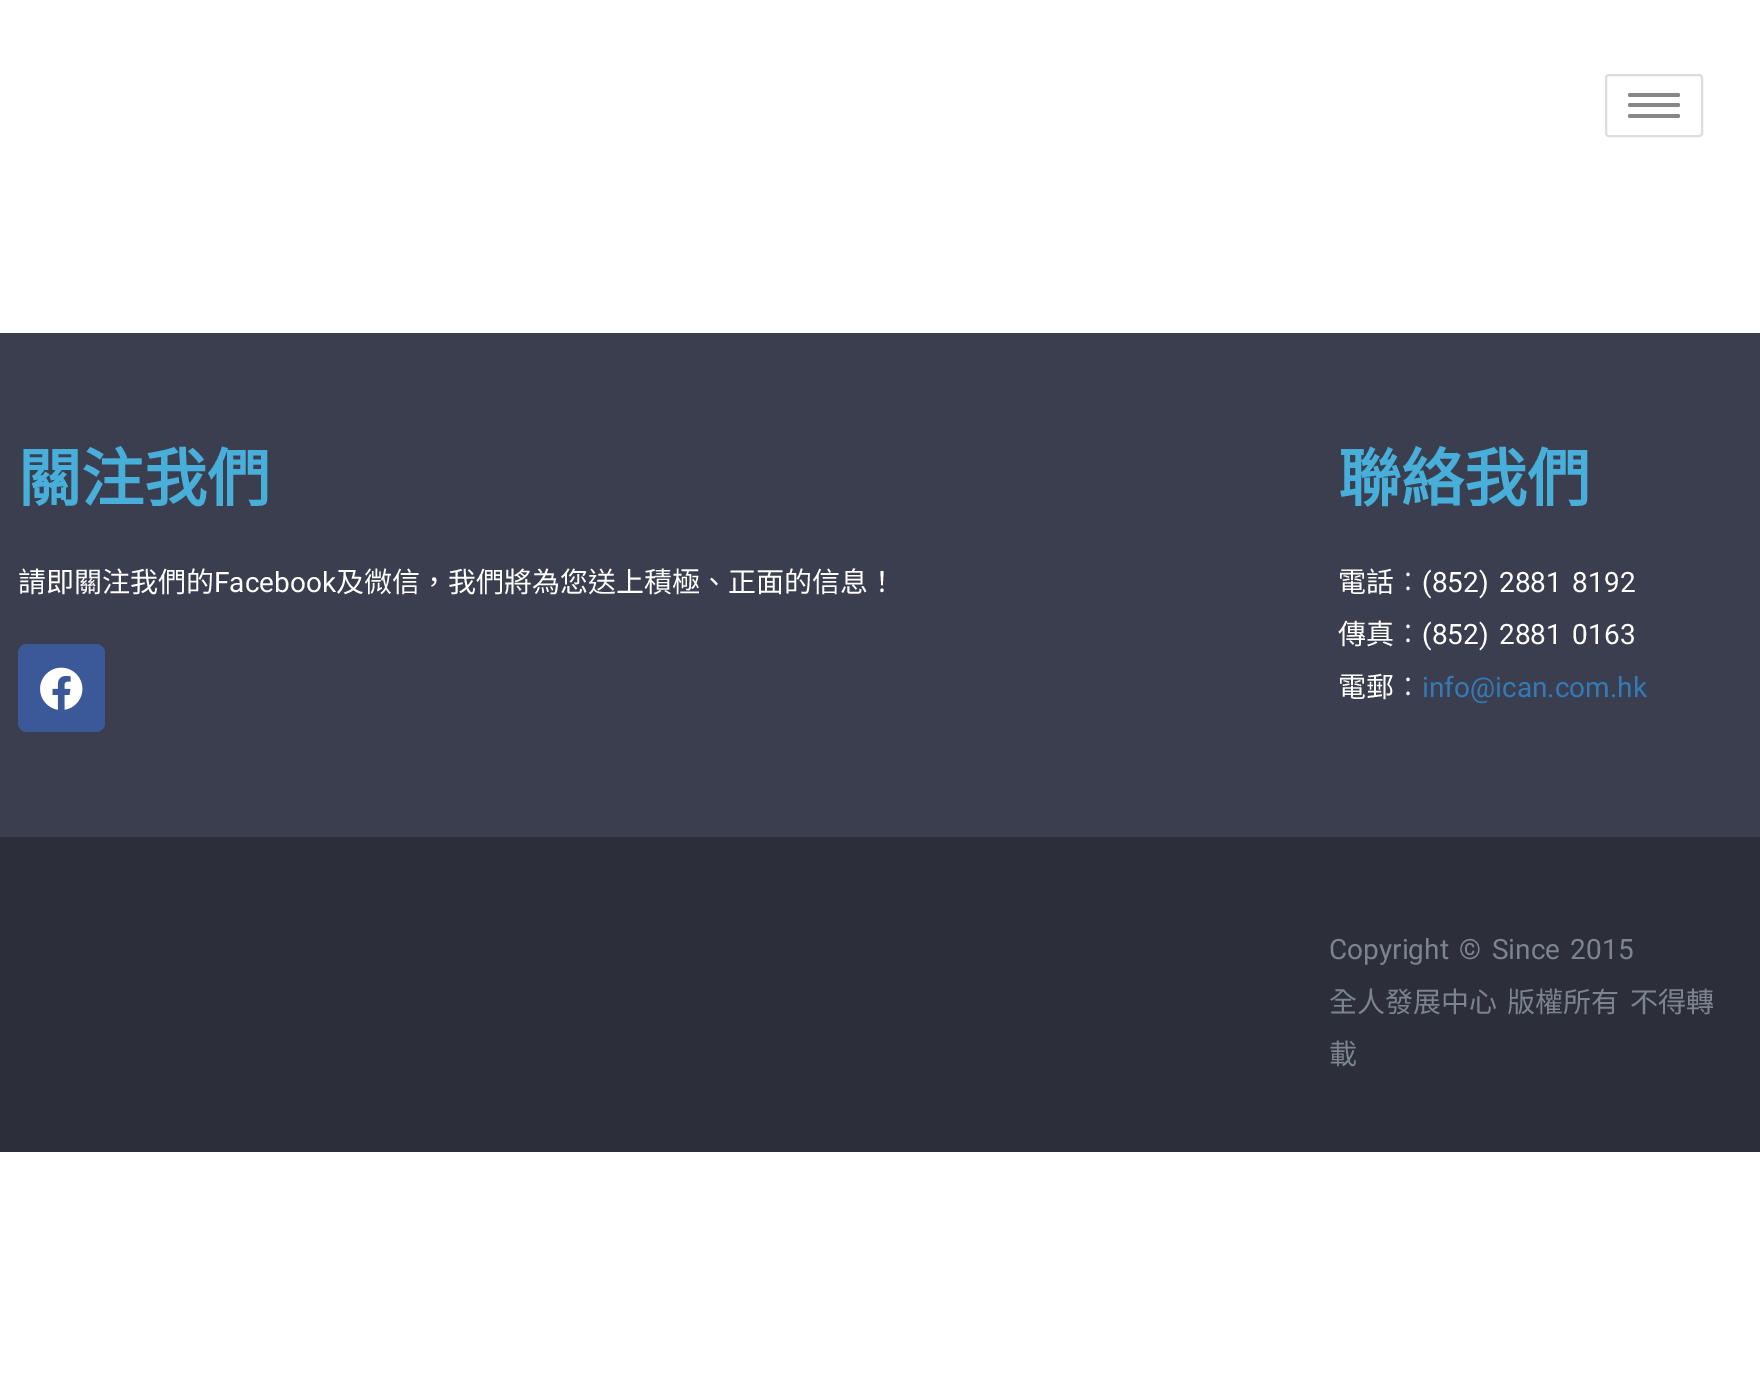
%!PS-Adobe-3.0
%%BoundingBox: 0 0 1760 1381
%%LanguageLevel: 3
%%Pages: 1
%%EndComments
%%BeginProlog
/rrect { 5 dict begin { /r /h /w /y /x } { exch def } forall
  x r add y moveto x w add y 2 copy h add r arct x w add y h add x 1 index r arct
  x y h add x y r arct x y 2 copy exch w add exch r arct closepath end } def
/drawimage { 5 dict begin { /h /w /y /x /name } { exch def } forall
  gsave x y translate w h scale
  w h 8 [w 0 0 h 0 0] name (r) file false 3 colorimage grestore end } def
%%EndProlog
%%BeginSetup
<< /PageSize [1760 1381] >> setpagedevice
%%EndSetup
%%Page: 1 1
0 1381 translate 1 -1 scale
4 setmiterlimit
1 setgray
0 0 1760 1381 rectfill
0.867 setgray
2 setlinewidth
1606 75 96 61 3 rrect stroke
0.533 setgray
1628 93 52 4 2 rrect fill
1628 103 52 4 2 rrect fill
1628 114 52 4 2 rrect fill
0.231 0.243 0.31 setrgbcolor
0 333 1760 504 rectfill
0.231 0.349 0.596 setrgbcolor
18 644 87 88 9 rrect fill
(images/1.raw) 40 667 43 43 drawimage
0.173 0.18 0.227 setrgbcolor
0 837 1760 315 rectfill
/NotoSansCJKHK-Bold [63 0 0 -63 0 0] selectfont
0.282 0.686 0.859 setrgbcolor
18 501 moveto (關注我們) show
/NotoSansCJKHK-Regular [28 0 0 -28 0 0] selectfont
1 setgray
18 592 moveto (請即關注我們的) show
/Roboto-Regular [28 0 0 -28 0 0] selectfont
214 592 moveto (Facebook) show
/NotoSansCJKHK-Regular [28 0 0 -28 0 0] selectfont
336 592 moveto (及微信，我們將為您送上積極、正面的信息！) show
/NotoSansCJKHK-Bold [63 0 0 -63 0 0] selectfont
0.282 0.686 0.859 setrgbcolor
1338 501 moveto (聯絡我們) show
/NotoSansCJKHK-Regular [28 0 0 -28 0 0] selectfont
1 setgray
1338 592 moveto (電話︰) show
/Roboto-Regular [28 0 0 -28 0 0] selectfont
1422 592 moveto 3.5 0 32 (\(852\) 2881 8192) widthshow
/NotoSansCJKHK-Regular [28 0 0 -28 0 0] selectfont
1338 644 moveto (傳真︰) show
/Roboto-Regular [28 0 0 -28 0 0] selectfont
1422 644 moveto 3.5 0 32 (\(852\) 2881 0163) widthshow
/NotoSansCJKHK-Regular [28 0 0 -28 0 0] selectfont
1338 697 moveto (電郵︰) show
/Roboto-Regular [28 0 0 -28 0 0] selectfont
0.2 0.478 0.718 setrgbcolor
1422 697 moveto (info@ican.com.hk) show
0.482 0.518 0.561 setrgbcolor
1329 959 moveto 3.5 0 32 (Copyright © Since 2015) widthshow
/NotoSansCJKHK-Regular [28 0 0 -28 0 0] selectfont
1329 1012 moveto 4 0 32 (全人發展中心 版權所有 不得轉) widthshow
1329 1064 moveto (載) show
showpage
%%EOF
